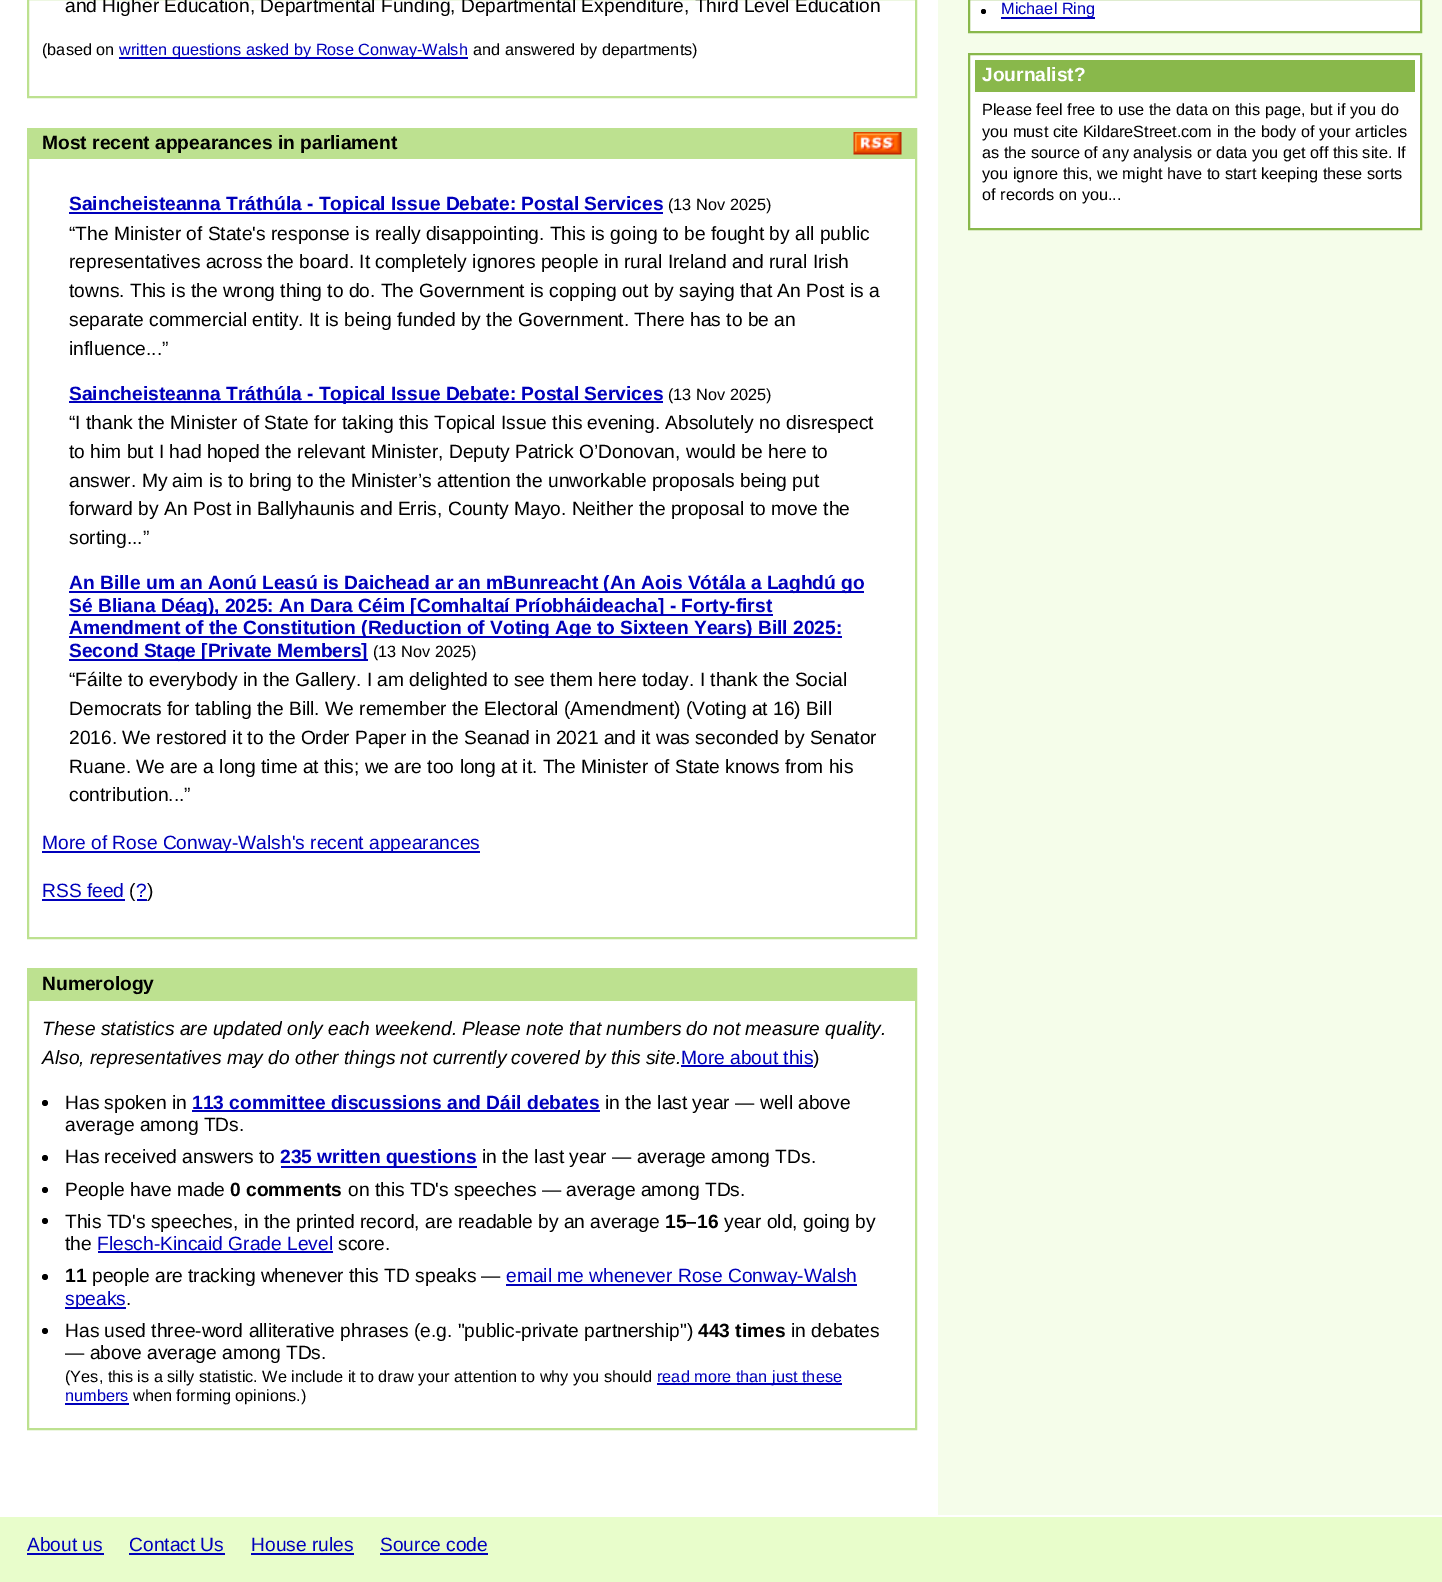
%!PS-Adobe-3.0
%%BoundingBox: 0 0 1442 1582
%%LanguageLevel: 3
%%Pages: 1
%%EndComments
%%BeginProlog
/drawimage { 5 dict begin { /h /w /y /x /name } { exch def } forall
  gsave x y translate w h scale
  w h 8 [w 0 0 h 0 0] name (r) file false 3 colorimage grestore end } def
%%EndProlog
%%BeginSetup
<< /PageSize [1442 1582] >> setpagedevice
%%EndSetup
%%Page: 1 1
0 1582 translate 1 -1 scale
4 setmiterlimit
0.961 0.992 0.918 setrgbcolor
0 0 1442 1582 rectfill
1 setgray
0 0 938 1515 rectfill
0.741 0.882 0.565 setrgbcolor
2 setlinewidth
28 -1 888 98 rectstroke
0 0 0.733 setrgbcolor
119 57 349 2 rectfill
0.741 0.882 0.565 setrgbcolor
28 129 888 809 rectstroke
29 130 886 29 rectfill
(images/1.raw) 853 132 49 23 drawimage
0 0 0.733 setrgbcolor
69 212 594 2 rectfill
69 401 594 2 rectfill
69 591 795 2 rectfill
69 614 704 2 rectfill
69 636 773 2 rectfill
69 659 299 2 rectfill
42 851 438 2 rectfill
42 899 83 2 rectfill
137 899 10 2 rectfill
0.741 0.882 0.565 setrgbcolor
28 969 888 460 rectstroke
29 970 886 31 rectfill
0 0 0.733 setrgbcolor
681 1065 132 2 rectfill
0 setgray
newpath 45 1103 3 0 360 arc closepath fill
0 0 0.733 setrgbcolor
192 1110 408 2 rectfill
0 setgray
newpath 45 1158 3 0 360 arc closepath fill
0 0 0.733 setrgbcolor
281 1166 196 2 rectfill
0 setgray
newpath 45 1190 3 0 360 arc closepath fill
newpath 45 1221 3 0 360 arc closepath fill
0 0 0.733 setrgbcolor
98 1251 235 2 rectfill
0 setgray
newpath 45 1277 3 0 360 arc closepath fill
0 0 0.733 setrgbcolor
506 1284 351 2 rectfill
65 1307 61 2 rectfill
0 setgray
newpath 45 1331 3 0 360 arc closepath fill
0 0 0.733 setrgbcolor
657 1383 185 2 rectfill
65 1403 64 2 rectfill
1 setgray
newpath 969 -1 moveto 1421 -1 lineto 1421 32 lineto 969 32 lineto closepath gsave fill grestore
0.537 0.722 0.294 setrgbcolor
stroke
0 setgray
newpath 983.5 11.5 2.5 0 360 arc closepath fill
0 0 0.733 setrgbcolor
1001 17 94 2 rectfill
1 setgray
newpath 969 54 moveto 1421 54 lineto 1421 229 lineto 969 229 lineto closepath gsave fill grestore
0.537 0.722 0.294 setrgbcolor
stroke
975 60 440 32 rectfill
1 setgray
0 1515 1442 2 rectfill
0.91 0.992 0.796 setrgbcolor
0 1517 1442 65 rectfill
0 0 0.733 setrgbcolor
27 1553 77 2 rectfill
129 1553 96 2 rectfill
251 1553 103 2 rectfill
380 1553 108 2 rectfill
/LiberationSans-Regular [19.2 0 0 -19.2 0 0] selectfont
0 setgray
65 12 moveto (and Higher Education, Departmental Funding, Departmental Expenditure, Third Level Education) show
/LiberationSans-Regular [16.3 0 0 -16.3 0 0] selectfont
42 55 moveto (\(based on) show
0 0 0.733 setrgbcolor
119 55 moveto (written questions asked by Rose Conway-Walsh) show
0 setgray
473 55 moveto (and answered by departments\)) show
/LiberationSans-Bold [19.2 0 0 -19.2 0 0] selectfont
42 149 moveto (Most recent appearances in parliament) show
0 0 0.733 setrgbcolor
69 210 moveto (Saincheisteanna Tráthúla - Topical Issue Debate: Postal Services) show
/LiberationSans-Regular [16.3 0 0 -16.3 0 0] selectfont
0 setgray
668 210 moveto (\(13 Nov 2025\)) show
/LiberationSans-Regular [19.2 0 0 -19.2 0 0] selectfont
69 240 moveto (“The Minister of State's response is really disappointing. This is going to be fought by all public) show
69 268 moveto (representatives across the board. It completely ignores people in rural Ireland and rural Irish) show
69 297 moveto (towns. This is the wrong thing to do. The Government is copping out by saying that An Post is a) show
69 326 moveto (separate commercial entity. It is being funded by the Government. There has to be an) show
69 355 moveto (influence...”) show
/LiberationSans-Bold [19.2 0 0 -19.2 0 0] selectfont
0 0 0.733 setrgbcolor
69 400 moveto (Saincheisteanna Tráthúla - Topical Issue Debate: Postal Services) show
/LiberationSans-Regular [16.3 0 0 -16.3 0 0] selectfont
0 setgray
668 400 moveto (\(13 Nov 2025\)) show
/LiberationSans-Regular [19.2 0 0 -19.2 0 0] selectfont
69 429 moveto (“I thank the Minister of State for taking this Topical Issue this evening. Absolutely no disrespect) show
69 458 moveto (to him but I had hoped the relevant Minister, Deputy Patrick O’Donovan, would be here to) show
69 487 moveto (answer. My aim is to bring to the Minister’s attention the unworkable proposals being put) show
69 515 moveto (forward by An Post in Ballyhaunis and Erris, County Mayo. Neither the proposal to move the) show
69 544 moveto (sorting...”) show
/LiberationSans-Bold [19.2 0 0 -19.2 0 0] selectfont
0 0 0.733 setrgbcolor
69 589 moveto (An Bille um an Aonú Leasú is Daichead ar an mBunreacht \(An Aois Vótála a Laghdú go) show
69 612 moveto (Sé Bliana Déag\), 2025: An Dara Céim [Comhaltaí Príobháideacha] - Forty-first) show
69 634 moveto (Amendment of the Constitution \(Reduction of Voting Age to Sixteen Years\) Bill 2025:) show
69 657 moveto (Second Stage [Private Members]) show
/LiberationSans-Regular [16.3 0 0 -16.3 0 0] selectfont
0 setgray
373 657 moveto (\(13 Nov 2025\)) show
/LiberationSans-Regular [19.2 0 0 -19.2 0 0] selectfont
69 686 moveto (“Fáilte to everybody in the Gallery. I am delighted to see them here today. I thank the Social) show
69 715 moveto (Democrats for tabling the Bill. We remember the Electoral \(Amendment\) \(Voting at 16\) Bill) show
69 744 moveto (2016. We restored it to the Order Paper in the Seanad in 2021 and it was seconded by Senator) show
69 773 moveto (Ruane. We are a long time at this; we are too long at it. The Minister of State knows from his) show
69 801 moveto (contribution...”) show
0 0 0.733 setrgbcolor
42 849 moveto (More of Rose Conway-Walsh's recent appearances) show
42 897 moveto (RSS feed) show
0 setgray
129 897 moveto (\() show
0 0 0.733 setrgbcolor
136 897 moveto (?) show
0 setgray
147 897 moveto (\)) show
/LiberationSans-Bold [19.2 0 0 -19.2 0 0] selectfont
42 990 moveto (Numerology) show
/LiberationSans-Italic [19.2 0 0 -19.2 0 0] selectfont
42 1035 moveto (These statistics are updated only each weekend. Please note that numbers do not measure quality.) show
42 1064 moveto (Also, representatives may do other things not currently covered by this site.) show
/LiberationSans-Regular [19.2 0 0 -19.2 0 0] selectfont
0 0 0.733 setrgbcolor
681 1064 moveto (More about this) show
0 setgray
813 1064 moveto (\)) show
65 1109 moveto (Has spoken in) show
/LiberationSans-Bold [19.2 0 0 -19.2 0 0] selectfont
0 0 0.733 setrgbcolor
192 1109 moveto (113 committee discussions and Dáil debates) show
/LiberationSans-Regular [19.2 0 0 -19.2 0 0] selectfont
0 setgray
605 1109 moveto (in the last year — well above) show
65 1131 moveto (average among TDs.) show
65 1163 moveto (Has received answers to) show
/LiberationSans-Bold [19.2 0 0 -19.2 0 0] selectfont
0 0 0.733 setrgbcolor
280 1163 moveto (235 written questions) show
/LiberationSans-Regular [19.2 0 0 -19.2 0 0] selectfont
0 setgray
482 1163 moveto (in the last year — average among TDs.) show
65 1196 moveto (People have made) show
/LiberationSans-Bold [19.2 0 0 -19.2 0 0] selectfont
230 1196 moveto (0 comments) show
/LiberationSans-Regular [19.2 0 0 -19.2 0 0] selectfont
348 1196 moveto (on this TD's speeches — average among TDs.) show
65 1228 moveto (This TD's speeches, in the printed record, are readable by an average) show
/LiberationSans-Bold [19.2 0 0 -19.2 0 0] selectfont
665 1228 moveto (15–16) show
/LiberationSans-Regular [19.2 0 0 -19.2 0 0] selectfont
724 1228 moveto (year old, going by) show
65 1250 moveto (the) show
0 0 0.733 setrgbcolor
97 1250 moveto (Flesch-Kincaid Grade Level) show
0 setgray
338 1250 moveto (score.) show
/LiberationSans-Bold [19.2 0 0 -19.2 0 0] selectfont
65 1282 moveto (11) show
/LiberationSans-Regular [19.2 0 0 -19.2 0 0] selectfont
92 1282 moveto (people are tracking whenever this TD speaks —) show
0 0 0.733 setrgbcolor
506 1282 moveto (email me whenever Rose Conway-Walsh) show
65 1305 moveto (speaks) show
0 setgray
126 1305 moveto (.) show
65 1337 moveto (Has used three-word alliterative phrases \(e.g. "public-private partnership"\)) show
/LiberationSans-Bold [19.2 0 0 -19.2 0 0] selectfont
698 1337 moveto (443 times) show
/LiberationSans-Regular [19.2 0 0 -19.2 0 0] selectfont
791 1337 moveto (in debates) show
65 1359 moveto (— above average among TDs.) show
/LiberationSans-Regular [16.3 0 0 -16.3 0 0] selectfont
65 1382 moveto (\(Yes, this is a silly statistic. We include it to draw your attention to why you should) show
0 0 0.733 setrgbcolor
657 1382 moveto (read more than just these) show
65 1401 moveto (numbers) show
0 setgray
133 1401 moveto (when forming opinions.\)) show
0 0 0.733 setrgbcolor
1001 14 moveto (Michael Ring) show
/LiberationSans-Bold [19.2 0 0 -19.2 0 0] selectfont
1 setgray
982 81 moveto (Journalist?) show
/LiberationSans-Regular [16.3 0 0 -16.3 0 0] selectfont
0 setgray
982 115 moveto (Please feel free to use the data on this page, but if you do) show
982 137 moveto (you must cite KildareStreet.com in the body of your articles) show
982 158 moveto (as the source of any analysis or data you get off this site. If) show
982 179 moveto (you ignore this, we might have to start keeping these sorts) show
982 200 moveto (of records on you...) show
/LiberationSans-Regular [19.2 0 0 -19.2 0 0] selectfont
0 0 0.733 setrgbcolor
27 1551 moveto (About us) show
129 1551 moveto (Contact Us) show
251 1551 moveto (House rules) show
380 1551 moveto (Source code) show
showpage
%%EOF
